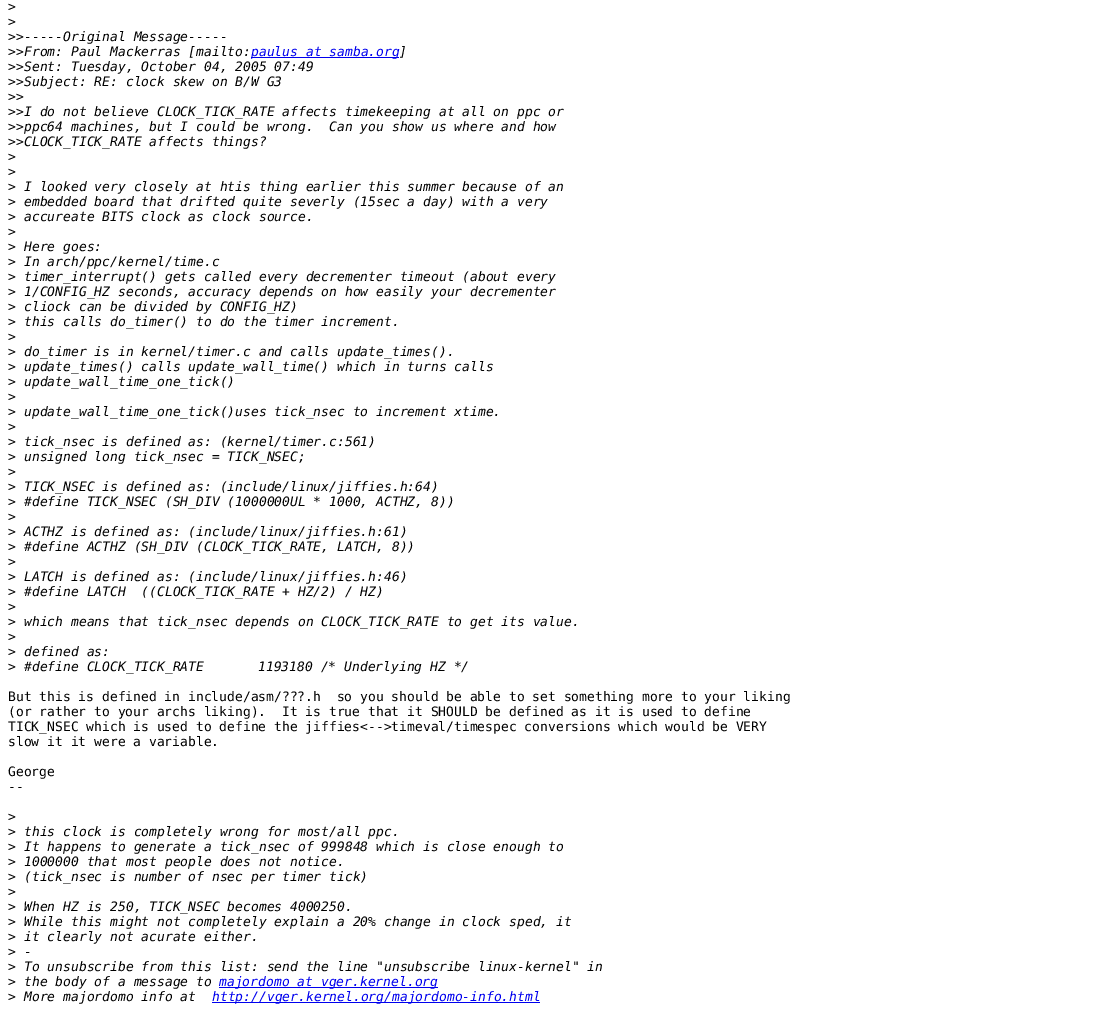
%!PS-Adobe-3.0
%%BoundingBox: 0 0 1104 1009
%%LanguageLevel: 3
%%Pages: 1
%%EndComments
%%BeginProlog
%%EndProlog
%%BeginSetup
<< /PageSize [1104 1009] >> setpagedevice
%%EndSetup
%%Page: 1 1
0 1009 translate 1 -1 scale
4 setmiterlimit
1 setgray
0 0 1104 1009 rectfill
0 0 0.933 setrgbcolor
251 57 148 1 rectfill
219 987 219 1 rectfill
212 1002 328 1 rectfill
/DejaVuSansMono-Regular [13 0 0 -13 0 0] selectfont
0 setgray
8 11 moveto (>) show
8 26 moveto (>) show
8 41 moveto (>>) show
/DejaVuSansMono-Italic [13 0 0 -13 0 0] selectfont
24 41 moveto (-----Original Message-----) show
/DejaVuSansMono-Regular [13 0 0 -13 0 0] selectfont
8 56 moveto (>>) show
/DejaVuSansMono-Italic [13 0 0 -13 0 0] selectfont
24 56 moveto (From: Paul Mackerras [mailto:) show
0 0 0.933 setrgbcolor
251 56 moveto (paulus at samba.org) show
0 setgray
399 56 moveto (]) show
/DejaVuSansMono-Regular [13 0 0 -13 0 0] selectfont
8 71 moveto (>>) show
/DejaVuSansMono-Italic [13 0 0 -13 0 0] selectfont
24 71 moveto (Sent: Tuesday, October 04, 2005 07:49) show
/DejaVuSansMono-Regular [13 0 0 -13 0 0] selectfont
8 86 moveto (>>) show
/DejaVuSansMono-Italic [13 0 0 -13 0 0] selectfont
24 86 moveto (Subject: RE: clock skew on B/W G3) show
/DejaVuSansMono-Regular [13 0 0 -13 0 0] selectfont
8 101 moveto (>>) show
8 116 moveto (>>) show
/DejaVuSansMono-Italic [13 0 0 -13 0 0] selectfont
24 116 moveto (I do not believe CLOCK_TICK_RATE affects timekeeping at all on ppc or) show
/DejaVuSansMono-Regular [13 0 0 -13 0 0] selectfont
8 131 moveto (>>) show
/DejaVuSansMono-Italic [13 0 0 -13 0 0] selectfont
24 131 moveto (ppc64 machines, but I could be wrong.  Can you show us where and how) show
/DejaVuSansMono-Regular [13 0 0 -13 0 0] selectfont
8 146 moveto (>>) show
/DejaVuSansMono-Italic [13 0 0 -13 0 0] selectfont
24 146 moveto (CLOCK_TICK_RATE affects things?) show
/DejaVuSansMono-Regular [13 0 0 -13 0 0] selectfont
8 161 moveto (>) show
8 176 moveto (>) show
8 191 moveto (>) show
/DejaVuSansMono-Italic [13 0 0 -13 0 0] selectfont
24 191 moveto (I looked very closely at htis thing earlier this summer because of an) show
/DejaVuSansMono-Regular [13 0 0 -13 0 0] selectfont
8 206 moveto (>) show
/DejaVuSansMono-Italic [13 0 0 -13 0 0] selectfont
24 206 moveto (embedded board that drifted quite severly \(15sec a day\) with a very) show
/DejaVuSansMono-Regular [13 0 0 -13 0 0] selectfont
8 221 moveto (>) show
/DejaVuSansMono-Italic [13 0 0 -13 0 0] selectfont
24 221 moveto (accureate BITS clock as clock source.) show
/DejaVuSansMono-Regular [13 0 0 -13 0 0] selectfont
8 236 moveto (>) show
8 251 moveto (>) show
/DejaVuSansMono-Italic [13 0 0 -13 0 0] selectfont
24 251 moveto (Here goes:) show
/DejaVuSansMono-Regular [13 0 0 -13 0 0] selectfont
8 266 moveto (>) show
/DejaVuSansMono-Italic [13 0 0 -13 0 0] selectfont
24 266 moveto (In arch/ppc/kernel/time.c) show
/DejaVuSansMono-Regular [13 0 0 -13 0 0] selectfont
8 281 moveto (>) show
/DejaVuSansMono-Italic [13 0 0 -13 0 0] selectfont
24 281 moveto (timer_interrupt\(\) gets called every decrementer timeout \(about every) show
/DejaVuSansMono-Regular [13 0 0 -13 0 0] selectfont
8 296 moveto (>) show
/DejaVuSansMono-Italic [13 0 0 -13 0 0] selectfont
24 296 moveto (1/CONFIG_HZ seconds, accuracy depends on how easily your decrementer) show
/DejaVuSansMono-Regular [13 0 0 -13 0 0] selectfont
8 311 moveto (>) show
/DejaVuSansMono-Italic [13 0 0 -13 0 0] selectfont
24 311 moveto (cliock can be divided by CONFIG_HZ\)) show
/DejaVuSansMono-Regular [13 0 0 -13 0 0] selectfont
8 326 moveto (>) show
/DejaVuSansMono-Italic [13 0 0 -13 0 0] selectfont
24 326 moveto (this calls do_timer\(\) to do the timer increment.) show
/DejaVuSansMono-Regular [13 0 0 -13 0 0] selectfont
8 341 moveto (>) show
8 356 moveto (>) show
/DejaVuSansMono-Italic [13 0 0 -13 0 0] selectfont
24 356 moveto (do_timer is in kernel/timer.c and calls update_times\(\).) show
/DejaVuSansMono-Regular [13 0 0 -13 0 0] selectfont
8 371 moveto (>) show
/DejaVuSansMono-Italic [13 0 0 -13 0 0] selectfont
24 371 moveto (update_times\(\) calls update_wall_time\(\) which in turns calls) show
/DejaVuSansMono-Regular [13 0 0 -13 0 0] selectfont
8 386 moveto (>) show
/DejaVuSansMono-Italic [13 0 0 -13 0 0] selectfont
24 386 moveto (update_wall_time_one_tick\(\)) show
/DejaVuSansMono-Regular [13 0 0 -13 0 0] selectfont
8 401 moveto (>) show
8 416 moveto (>) show
/DejaVuSansMono-Italic [13 0 0 -13 0 0] selectfont
24 416 moveto (update_wall_time_one_tick\(\)uses tick_nsec to increment xtime.) show
/DejaVuSansMono-Regular [13 0 0 -13 0 0] selectfont
8 431 moveto (>) show
8 446 moveto (>) show
/DejaVuSansMono-Italic [13 0 0 -13 0 0] selectfont
24 446 moveto (tick_nsec is defined as: \(kernel/timer.c:561\)) show
/DejaVuSansMono-Regular [13 0 0 -13 0 0] selectfont
8 461 moveto (>) show
/DejaVuSansMono-Italic [13 0 0 -13 0 0] selectfont
24 461 moveto (unsigned long tick_nsec = TICK_NSEC;) show
/DejaVuSansMono-Regular [13 0 0 -13 0 0] selectfont
8 476 moveto (>) show
8 491 moveto (>) show
/DejaVuSansMono-Italic [13 0 0 -13 0 0] selectfont
24 491 moveto (TICK_NSEC is defined as: \(include/linux/jiffies.h:64\)) show
/DejaVuSansMono-Regular [13 0 0 -13 0 0] selectfont
8 506 moveto (>) show
/DejaVuSansMono-Italic [13 0 0 -13 0 0] selectfont
24 506 moveto (#define TICK_NSEC \(SH_DIV \(1000000UL * 1000, ACTHZ, 8\)\)) show
/DejaVuSansMono-Regular [13 0 0 -13 0 0] selectfont
8 521 moveto (>) show
8 536 moveto (>) show
/DejaVuSansMono-Italic [13 0 0 -13 0 0] selectfont
24 536 moveto (ACTHZ is defined as: \(include/linux/jiffies.h:61\)) show
/DejaVuSansMono-Regular [13 0 0 -13 0 0] selectfont
8 551 moveto (>) show
/DejaVuSansMono-Italic [13 0 0 -13 0 0] selectfont
24 551 moveto (#define ACTHZ \(SH_DIV \(CLOCK_TICK_RATE, LATCH, 8\)\)) show
/DejaVuSansMono-Regular [13 0 0 -13 0 0] selectfont
8 566 moveto (>) show
8 581 moveto (>) show
/DejaVuSansMono-Italic [13 0 0 -13 0 0] selectfont
24 581 moveto (LATCH is defined as: \(include/linux/jiffies.h:46\)) show
/DejaVuSansMono-Regular [13 0 0 -13 0 0] selectfont
8 596 moveto (>) show
/DejaVuSansMono-Italic [13 0 0 -13 0 0] selectfont
24 596 moveto (#define LATCH  \(\(CLOCK_TICK_RATE + HZ/2\) / HZ\)) show
/DejaVuSansMono-Regular [13 0 0 -13 0 0] selectfont
8 611 moveto (>) show
8 626 moveto (>) show
/DejaVuSansMono-Italic [13 0 0 -13 0 0] selectfont
24 626 moveto (which means that tick_nsec depends on CLOCK_TICK_RATE to get its value.) show
/DejaVuSansMono-Regular [13 0 0 -13 0 0] selectfont
8 641 moveto (>) show
8 656 moveto (>) show
/DejaVuSansMono-Italic [13 0 0 -13 0 0] selectfont
24 656 moveto (defined as:) show
/DejaVuSansMono-Regular [13 0 0 -13 0 0] selectfont
8 671 moveto (>) show
/DejaVuSansMono-Italic [13 0 0 -13 0 0] selectfont
24 671 moveto (#define CLOCK_TICK_RATE) show
258 671 moveto (1193180 /* Underlying HZ */) show
/DejaVuSansMono-Regular [13 0 0 -13 0 0] selectfont
8 701 moveto (But this is defined in include/asm/???.h  so you should be able to set something more to your liking) show
8 716 moveto (\(or rather to your archs liking\).  It is true that it SHOULD be defined as it is used to define) show
8 731 moveto (TICK_NSEC which is used to define the jiffies<-->timeval/timespec conversions which would be VERY) show
8 746 moveto (slow it it were a variable.) show
8 776 moveto (George) show
8 791 moveto (--) show
8 821 moveto (>) show
8 836 moveto (>) show
/DejaVuSansMono-Italic [13 0 0 -13 0 0] selectfont
24 836 moveto (this clock is completely wrong for most/all ppc.) show
/DejaVuSansMono-Regular [13 0 0 -13 0 0] selectfont
8 851 moveto (>) show
/DejaVuSansMono-Italic [13 0 0 -13 0 0] selectfont
24 851 moveto (It happens to generate a tick_nsec of 999848 which is close enough to) show
/DejaVuSansMono-Regular [13 0 0 -13 0 0] selectfont
8 866 moveto (>) show
/DejaVuSansMono-Italic [13 0 0 -13 0 0] selectfont
24 866 moveto (1000000 that most people does not notice.) show
/DejaVuSansMono-Regular [13 0 0 -13 0 0] selectfont
8 881 moveto (>) show
/DejaVuSansMono-Italic [13 0 0 -13 0 0] selectfont
24 881 moveto (\(tick_nsec is number of nsec per timer tick\)) show
/DejaVuSansMono-Regular [13 0 0 -13 0 0] selectfont
8 896 moveto (>) show
8 911 moveto (>) show
/DejaVuSansMono-Italic [13 0 0 -13 0 0] selectfont
24 911 moveto (When HZ is 250, TICK_NSEC becomes 4000250.) show
/DejaVuSansMono-Regular [13 0 0 -13 0 0] selectfont
8 926 moveto (>) show
/DejaVuSansMono-Italic [13 0 0 -13 0 0] selectfont
24 926 moveto (While this might not completely explain a 20% change in clock sped, it) show
/DejaVuSansMono-Regular [13 0 0 -13 0 0] selectfont
8 941 moveto (>) show
/DejaVuSansMono-Italic [13 0 0 -13 0 0] selectfont
24 941 moveto (it clearly not acurate either.) show
/DejaVuSansMono-Regular [13 0 0 -13 0 0] selectfont
8 956 moveto (>) show
/DejaVuSansMono-Italic [13 0 0 -13 0 0] selectfont
24 956 moveto (-) show
/DejaVuSansMono-Regular [13 0 0 -13 0 0] selectfont
8 971 moveto (>) show
/DejaVuSansMono-Italic [13 0 0 -13 0 0] selectfont
24 971 moveto (To unsubscribe from this list: send the line "unsubscribe linux-kernel" in) show
/DejaVuSansMono-Regular [13 0 0 -13 0 0] selectfont
8 986 moveto (>) show
/DejaVuSansMono-Italic [13 0 0 -13 0 0] selectfont
24 986 moveto (the body of a message to) show
0 0 0.933 setrgbcolor
219 986 moveto (majordomo at vger.kernel.org) show
/DejaVuSansMono-Regular [13 0 0 -13 0 0] selectfont
0 setgray
8 1001 moveto (>) show
/DejaVuSansMono-Italic [13 0 0 -13 0 0] selectfont
24 1001 moveto (More majordomo info at) show
0 0 0.933 setrgbcolor
212 1001 moveto (http://vger.kernel.org/majordomo-info.html) show
showpage
%%EOF
